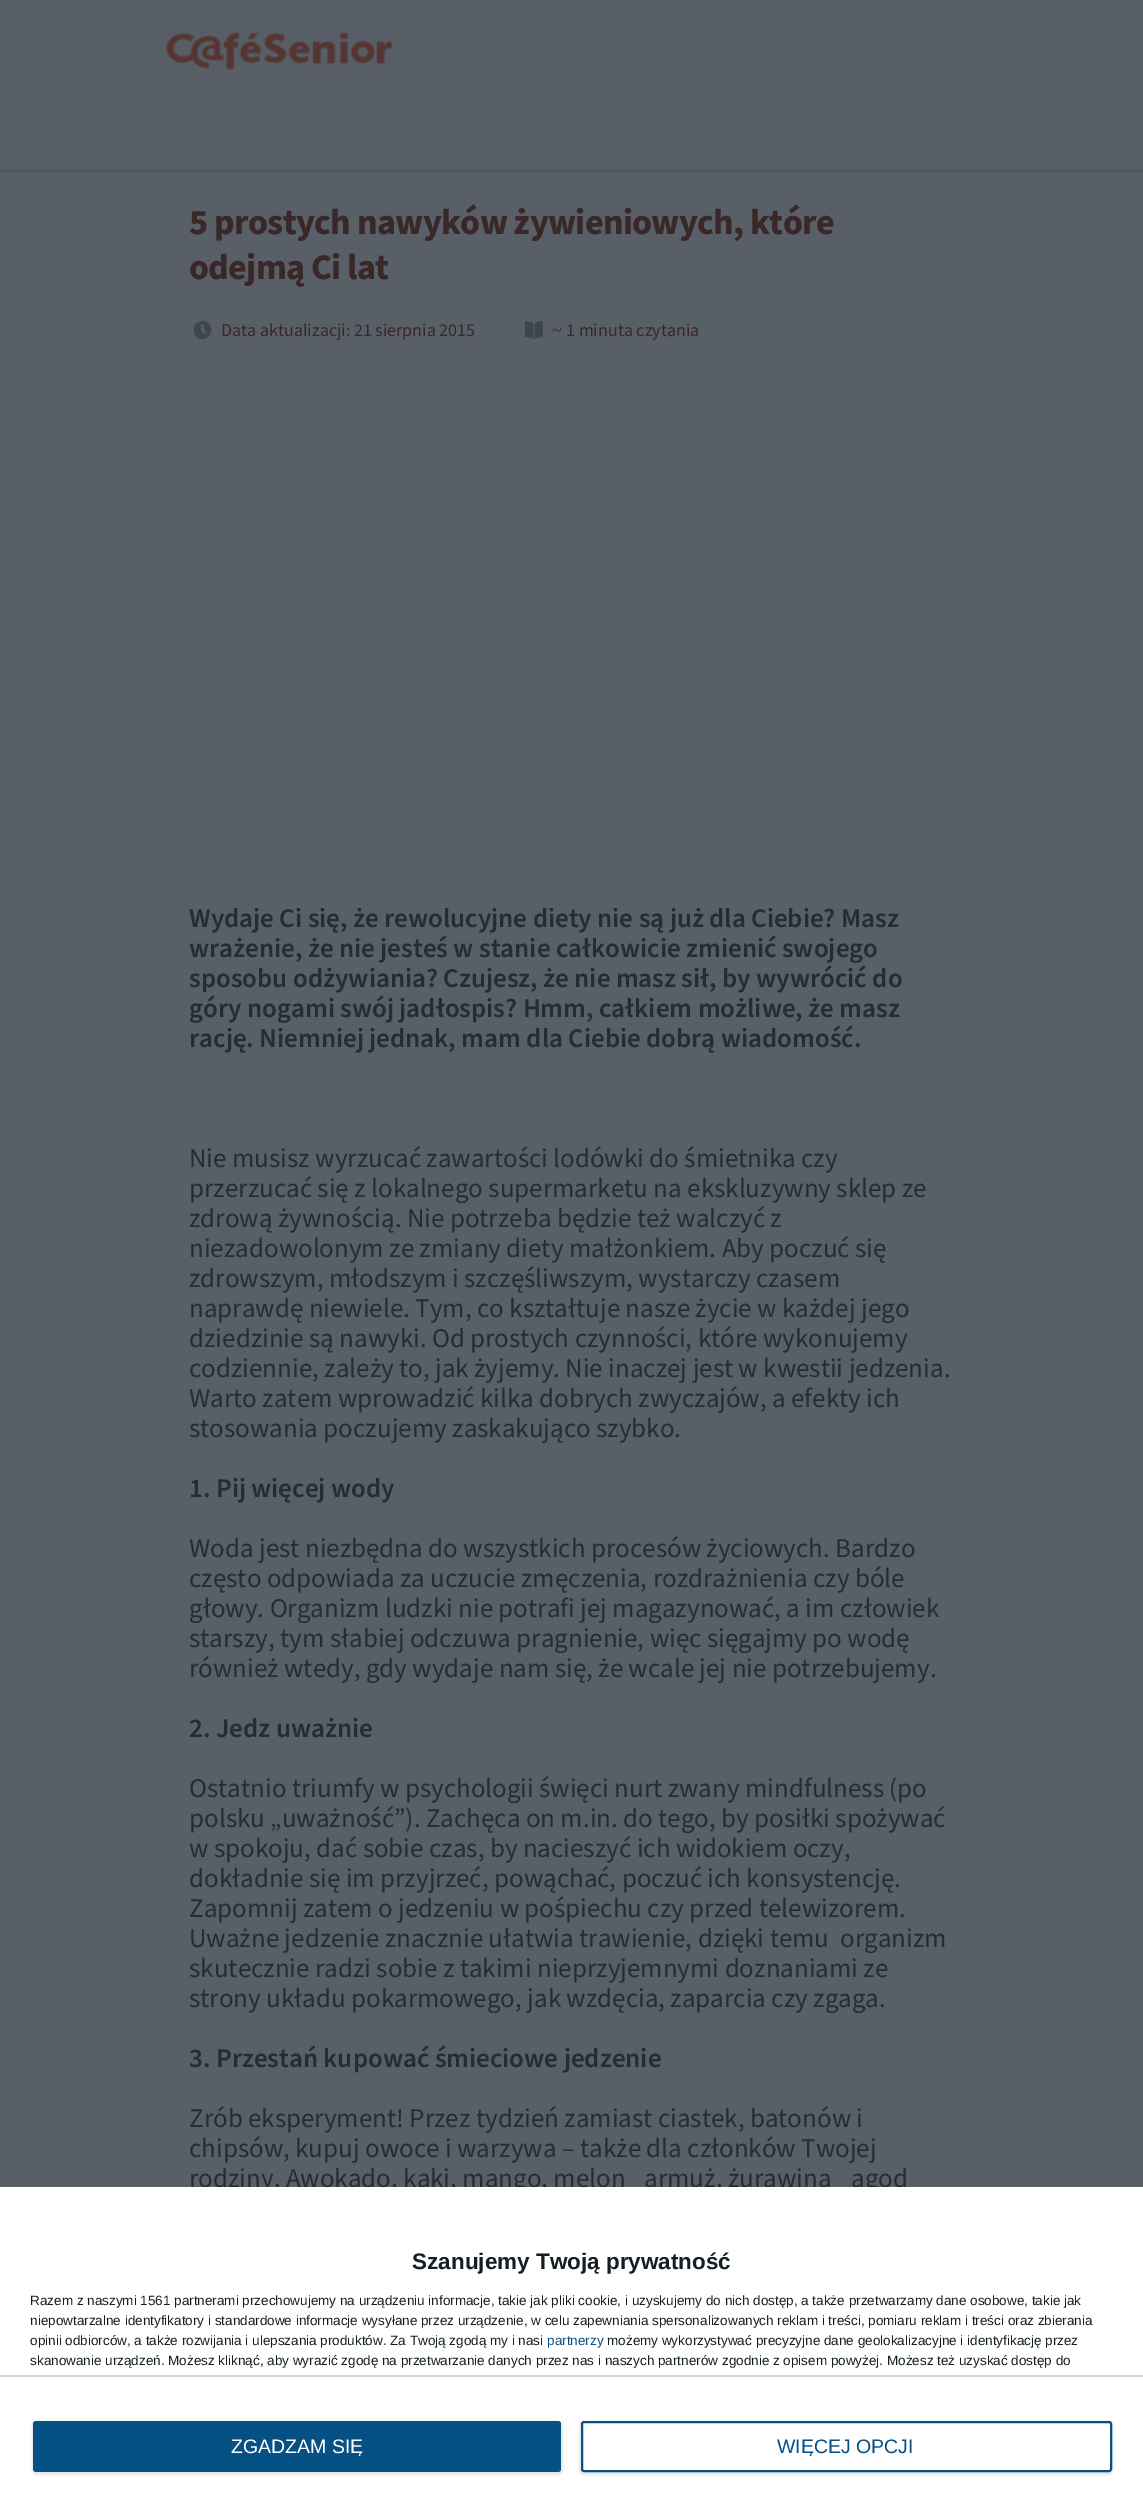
%!PS-Adobe-3.0
%%BoundingBox: 0 0 1143 2507
%%LanguageLevel: 3
%%Pages: 1
%%EndComments
%%BeginProlog
/setalpha { dup .setfillconstantalpha .setstrokeconstantalpha } def
/rrect { 5 dict begin { /r /h /w /y /x } { exch def } forall
  x r add y moveto x w add y 2 copy h add r arct x w add y h add x 1 index r arct
  x y h add x y r arct x y 2 copy exch w add exch r arct closepath end } def
/softshadow { 12 dict begin { /a /b /q /h /w /y /x } { exch def } forall gsave /was 0 def
  9 -2 -9 { dup b mul 4 div /e exch def 1 sub .425 mul 2.718 exch exp 1 add a .99 .min exch div /now exch def
    1 1 now sub 1 was sub div sub setalpha /was now def
    w h .min e 2 mul add 0 gt { x e sub y e sub w e 2 mul add h e 2 mul add
      q e add b .6 mul add w h .min 2 div e add .min 0 .max rrect fill } if } for grestore end } def
/drawimage { 5 dict begin { /h /w /y /x /name } { exch def } forall
  gsave x y translate w h scale
  w h 8 [w 0 0 h 0 0] name (r) file false 3 colorimage grestore end } def
%%EndProlog
%%BeginSetup
<< /PageSize [1143 2507] /PageUsesTransparency true >> setpagedevice
%%EndSetup
%%Page: 1 1
0 .pushpdf14devicefilter
0 2507 translate 1 -1 scale
4 setmiterlimit
0.349 0.373 0.404 setrgbcolor
0 0 1143 2507 rectfill
0.302 0.333 0.365 setrgbcolor
0 170 1143 2 rectfill
(images/1.raw) 166 32 226 38 drawimage
(images/2.raw) 194 321 18 18 drawimage
(images/3.raw) 525 321 18 18 drawimage
/SourceSansPro-Bold [36 0 0 -36 0 0] selectfont
0.227 0.153 0.153 setrgbcolor
189 234 moveto -0.7 0 (5 prostych nawyków żywieniowych, które) ashow
189 279 moveto -0.7 0 (odejmą Ci lat) ashow
/SourceSansPro-Regular [18 0 0 -18 0 0] selectfont
221 336 moveto (Data aktualizacji: 21 sierpnia 2015) show
/LiberationSerif-Regular [18 0 0 -18 0 0] selectfont
552 336 moveto (~) show
/SourceSansPro-Regular [18 0 0 -18 0 0] selectfont
566 336 moveto (1 minuta czytania) show
/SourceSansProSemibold-SemiBold [27 0 0 -27 0 0] selectfont
0.149 0.173 0.204 setrgbcolor
189 927 moveto (Wydaje Ci się, że rewolucyjne diety nie są już dla Ciebie? Masz) show
189 957 moveto (wrażenie, że nie jesteś w stanie całkowicie zmienić swojego) show
189 987 moveto (sposobu odżywiania? Czujesz, że nie masz sił, by wywrócić do) show
189 1017 moveto (góry nogami swój jadłospis? Hmm, całkiem możliwe, że masz) show
189 1047 moveto (rację. Niemniej jednak, mam dla Ciebie dobrą wiadomość.) show
/SourceSansPro-Regular [27 0 0 -27 0 0] selectfont
189 1167 moveto (Nie musisz wyrzucać zawartości lodówki do śmietnika czy) show
189 1197 moveto (przerzucać się z lokalnego supermarketu na ekskluzywny sklep ze) show
189 1227 moveto (zdrową żywnością. Nie potrzeba będzie też walczyć z) show
189 1257 moveto (niezadowolonym ze zmiany diety małżonkiem. Aby poczuć się) show
189 1287 moveto (zdrowszym, młodszym i szczęśliwszym, wystarczy czasem) show
189 1317 moveto (naprawdę niewiele. Tym, co kształtuje nasze życie w każdej jego) show
189 1347 moveto (dziedzinie są nawyki. Od prostych czynności, które wykonujemy) show
189 1377 moveto (codziennie, zależy to, jak żyjemy. Nie inaczej jest w kwestii jedzenia.) show
189 1407 moveto (Warto zatem wprowadzić kilka dobrych zwyczajów, a efekty ich) show
189 1437 moveto (stosowania poczujemy zaskakująco szybko.) show
/SourceSansProSemibold-SemiBold [27 0 0 -27 0 0] selectfont
189 1497 moveto (1. Pij więcej wody) show
/SourceSansPro-Regular [27 0 0 -27 0 0] selectfont
189 1557 moveto (Woda jest niezbędna do wszystkich procesów życiowych. Bardzo) show
189 1587 moveto (często odpowiada za uczucie zmęczenia, rozdrażnienia czy bóle) show
189 1617 moveto (głowy. Organizm ludzki nie potrafi jej magazynować, a im człowiek) show
189 1647 moveto (starszy, tym słabiej odczuwa pragnienie, więc sięgajmy po wodę) show
189 1677 moveto (również wtedy, gdy wydaje nam się, że wcale jej nie potrzebujemy.) show
/SourceSansProSemibold-SemiBold [27 0 0 -27 0 0] selectfont
189 1737 moveto (2. Jedz uważnie) show
/SourceSansPro-Regular [27 0 0 -27 0 0] selectfont
189 1797 moveto (Ostatnio triumfy w psychologii święci nurt zwany mindfulness \(po) show
189 1827 moveto (polsku „uważność”\). Zachęca on m.in. do tego, by posiłki spożywać) show
189 1857 moveto (w spokoju, dać sobie czas, by nacieszyć ich widokiem oczy,) show
189 1887 moveto (dokładnie się im przyjrzeć, powąchać, poczuć ich konsystencję.) show
189 1917 moveto (Zapomnij zatem o jedzeniu w pośpiechu czy przed telewizorem.) show
189 1947 moveto (Uważne jedzenie znacznie ułatwia trawienie, dzięki temu  organizm) show
189 1977 moveto (skutecznie radzi sobie z takimi nieprzyjemnymi doznaniami ze) show
189 2007 moveto (strony układu pokarmowego, jak wzdęcia, zaparcia czy zgaga.) show
/SourceSansProSemibold-SemiBold [27 0 0 -27 0 0] selectfont
189 2067 moveto (3. Przestań kupować śmieciowe jedzenie) show
/SourceSansPro-Regular [27 0 0 -27 0 0] selectfont
189 2127 moveto (Zrób eksperyment! Przez tydzień zamiast ciastek, batonów i) show
189 2157 moveto (chipsów, kupuj owoce i warzywa – także dla członków Twojej) show
189 2187 moveto (rodziny. Awokado, kaki, mango, melon) show
644 2187 moveto (armuż, żurawina) show
851 2187 moveto (agod) show
1 setgray
0 2187 1143 320 rectfill
/LiberationSans-Bold [22.5 0 0 -22.5 0 0] selectfont
0.078 0.118 0.137 setrgbcolor
412 2269 moveto (Szanujemy Twoją prywatność) show
/LiberationSans-Regular [13.5 0 0 -13.5 0 0] selectfont
30 2305 moveto (Razem z naszymi 1561 partnerami przechowujemy na urządzeniu informacje, takie jak pliki cookie, i uzyskujemy do nich dostęp, a także przetwarzamy dane osobowe, takie jak) show
30 2325 moveto (niepowtarzalne identyfikatory i standardowe informacje wysyłane przez urządzenie, w celu zapewniania spersonalizowanych reklam i treści, pomiaru reklam i treści oraz zbierania) show
30 2345 moveto (opinii odbiorców, a także rozwijania i ulepszania produktów. Za Twoją zgodą my i nasi) show
0.02 0.314 0.522 setrgbcolor
547 2345 moveto (partnerzy) show
0.078 0.118 0.137 setrgbcolor
607 2345 moveto (możemy wykorzystywać precyzyjne dane geolokalizacyjne i identyfikację przez) show
30 2365 moveto (skanowanie urządzeń. Możesz kliknąć, aby wyrazić zgodę na przetwarzanie danych przez nas i naszych partnerów zgodnie z opisem powyżej. Możesz też uzyskać dostęp do) show
0.847 setgray
0 2375 1143 2 rectfill
0 setgray
32 2421 531 54 5 1 0.1 softshadow
0.02 0.314 0.522 setrgbcolor
33 2421 528 51 3 rrect fill
gsave
231 2436 132 20 rectclip
/LiberationSans-Regular [19.5 0 0 -19.5 0 0] selectfont
1 setgray
231 2453 moveto (ZGADZAM SIĘ) show
grestore
0 setgray
579 2421 534 54 5 1 0.1 softshadow
1 setgray
582 2422 529 49 2 rrect gsave fill grestore
0.02 0.314 0.522 setrgbcolor
2 setlinewidth
stroke
gsave
777 2436 137 20 rectclip
/LiberationSans-Regular [19.5 0 0 -19.5 0 0] selectfont
777 2453 moveto (WIĘCEJ OPCJI) show
grestore
.poppdf14devicefilter showpage
%%EOF
